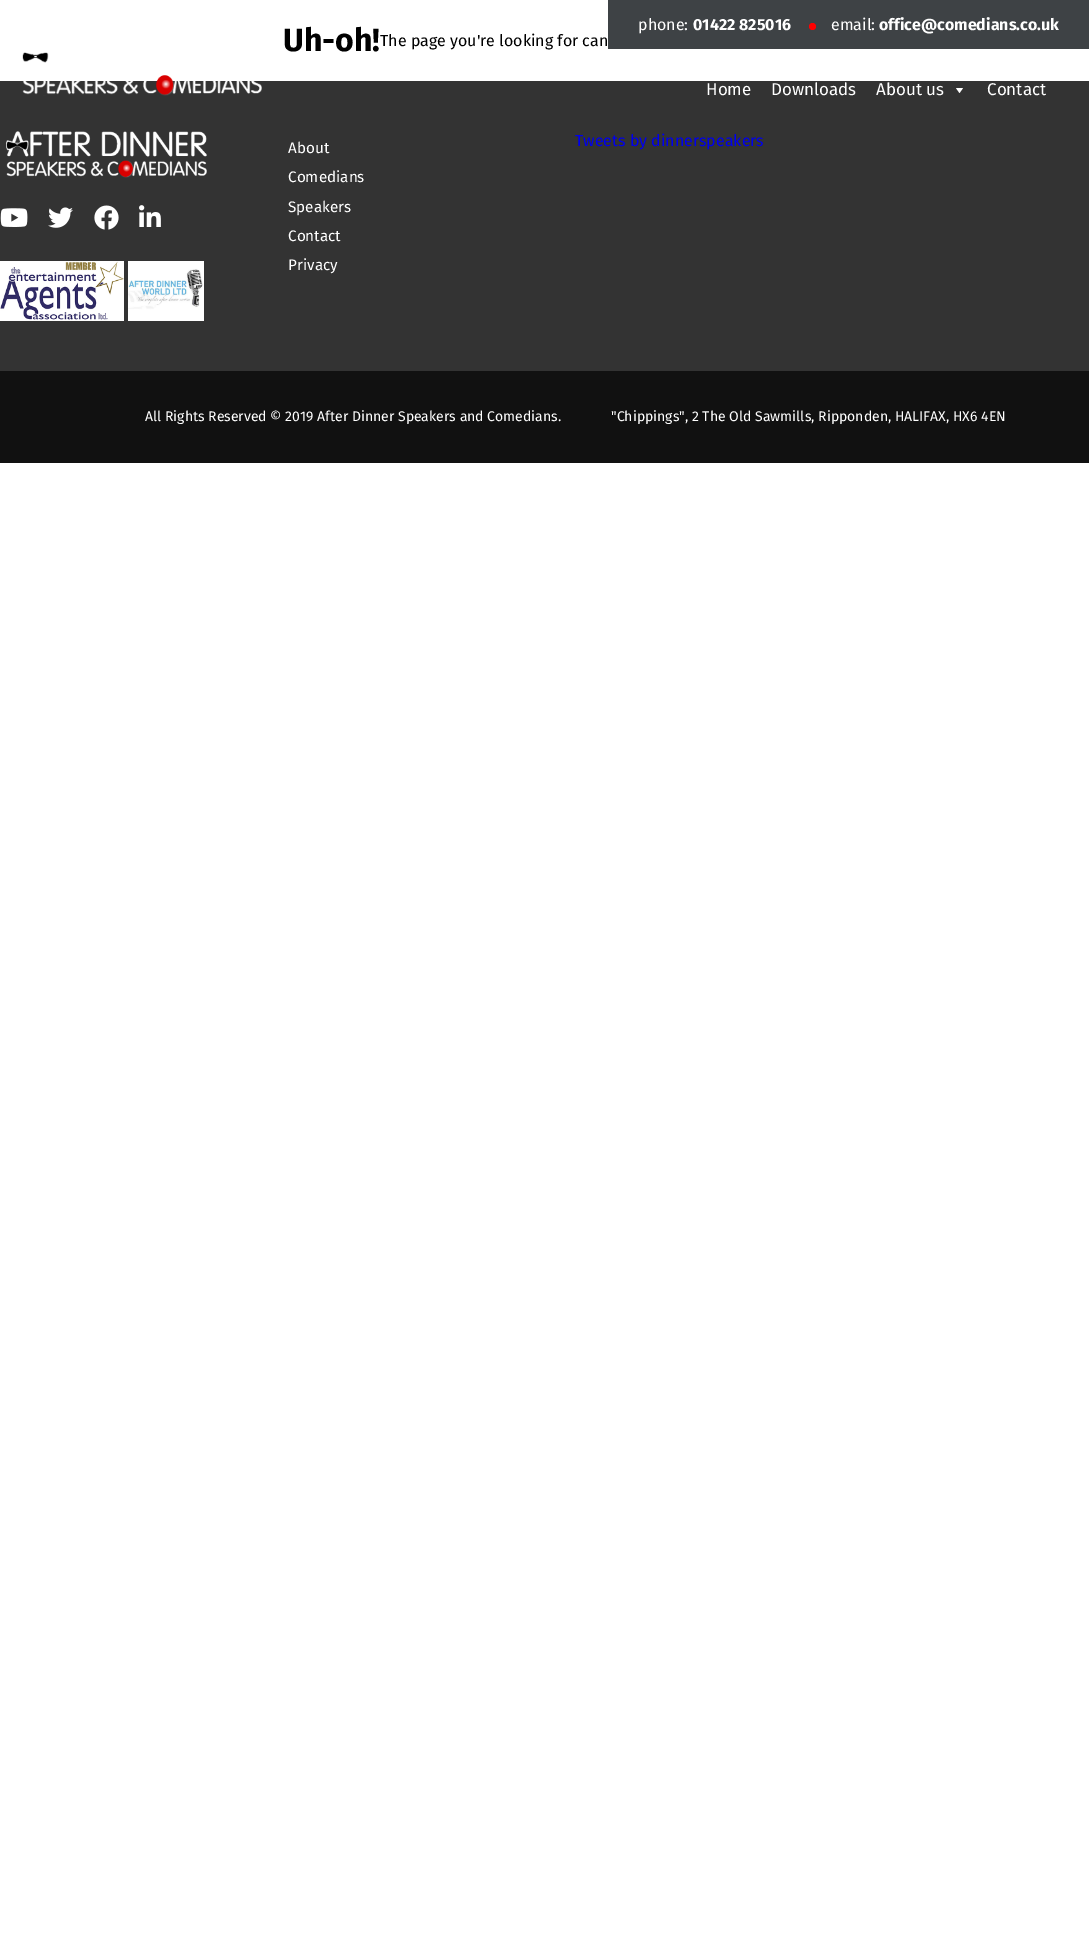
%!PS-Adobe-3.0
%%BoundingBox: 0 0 1089 1945
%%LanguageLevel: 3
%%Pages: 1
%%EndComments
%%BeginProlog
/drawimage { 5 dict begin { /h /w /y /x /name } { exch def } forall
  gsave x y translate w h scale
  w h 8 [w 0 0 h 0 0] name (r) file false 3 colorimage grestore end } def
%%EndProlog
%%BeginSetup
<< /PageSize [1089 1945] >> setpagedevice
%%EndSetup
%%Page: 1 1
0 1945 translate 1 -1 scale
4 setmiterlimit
1 setgray
0 0 1089 1945 rectfill
0.243 0.259 0.271 setrgbcolor
608 0 481 49 rectfill
1 0 0 setrgbcolor
newpath 812.5 26.5 3.5 0 360 arc closepath fill
0.2 setgray
0 81 1089 290 rectfill
(images/1.raw) 22 52 240 44 drawimage
1 setgray
newpath 963 88 moveto 959.5 93 lineto 956 88 lineto closepath fill
(images/2.raw) 6 131 201 47 drawimage
(images/3.raw) 0 208 28 19 drawimage
(images/4.raw) 48 207 25 21 drawimage
(images/5.raw) 94 205 25 25 drawimage
(images/6.raw) 139 205 22 22 drawimage
(images/7.raw) 0 261 124 60 drawimage
(images/8.raw) 128 261 76 60 drawimage
0.067 setgray
0 371 1089 92 rectfill
/FiraSans-Regular [16 0 0 -16 0 0] selectfont
1 setgray
638 30 moveto (phone:) show
/FiraSans-Bold [16 0 0 -16 0 0] selectfont
693 30 moveto (01422 825016) show
/FiraSans-Regular [16 0 0 -16 0 0] selectfont
831 30 moveto (email:) show
/FiraSans-Bold [16 0 0 -16 0 0] selectfont
879 30 moveto (office@comedians.co.uk) show
/FiraSans-Regular [17 0 0 -17 0 0] selectfont
706 95 moveto (Home) show
771 95 moveto (Downloads) show
876 95 moveto (About us) show
987 95 moveto (Contact) show
/FiraSans-Bold [32 0 0 -32 0 0] selectfont
0 setgray
283 51 moveto (Uh-oh!) show
/FiraSans-Regular [16 0 0 -16 0 0] selectfont
380 46 moveto (The page you're looking for can) show
/FiraSans-Regular [15.25 0 0 -15.25 0 0] selectfont
1 setgray
288 153 moveto (About) show
288 182 moveto (Comedians) show
288 212 moveto (Speakers) show
288 241 moveto (Contact) show
288 270 moveto (Privacy) show
/FiraSans-Regular [16 0 0 -16 0 0] selectfont
0 0 0.933 setrgbcolor
575 146 moveto (Tweets by dinnerspeakers) show
/FiraSans-Regular [14 0 0 -14 0 0] selectfont
1 setgray
145 421 moveto (All Rights Reserved © 2019 After Dinner Speakers and Comedians.) show
611 421 moveto ("Chippings", 2 The Old Sawmills, Ripponden, HALIFAX, HX6 4EN) show
showpage
%%EOF
